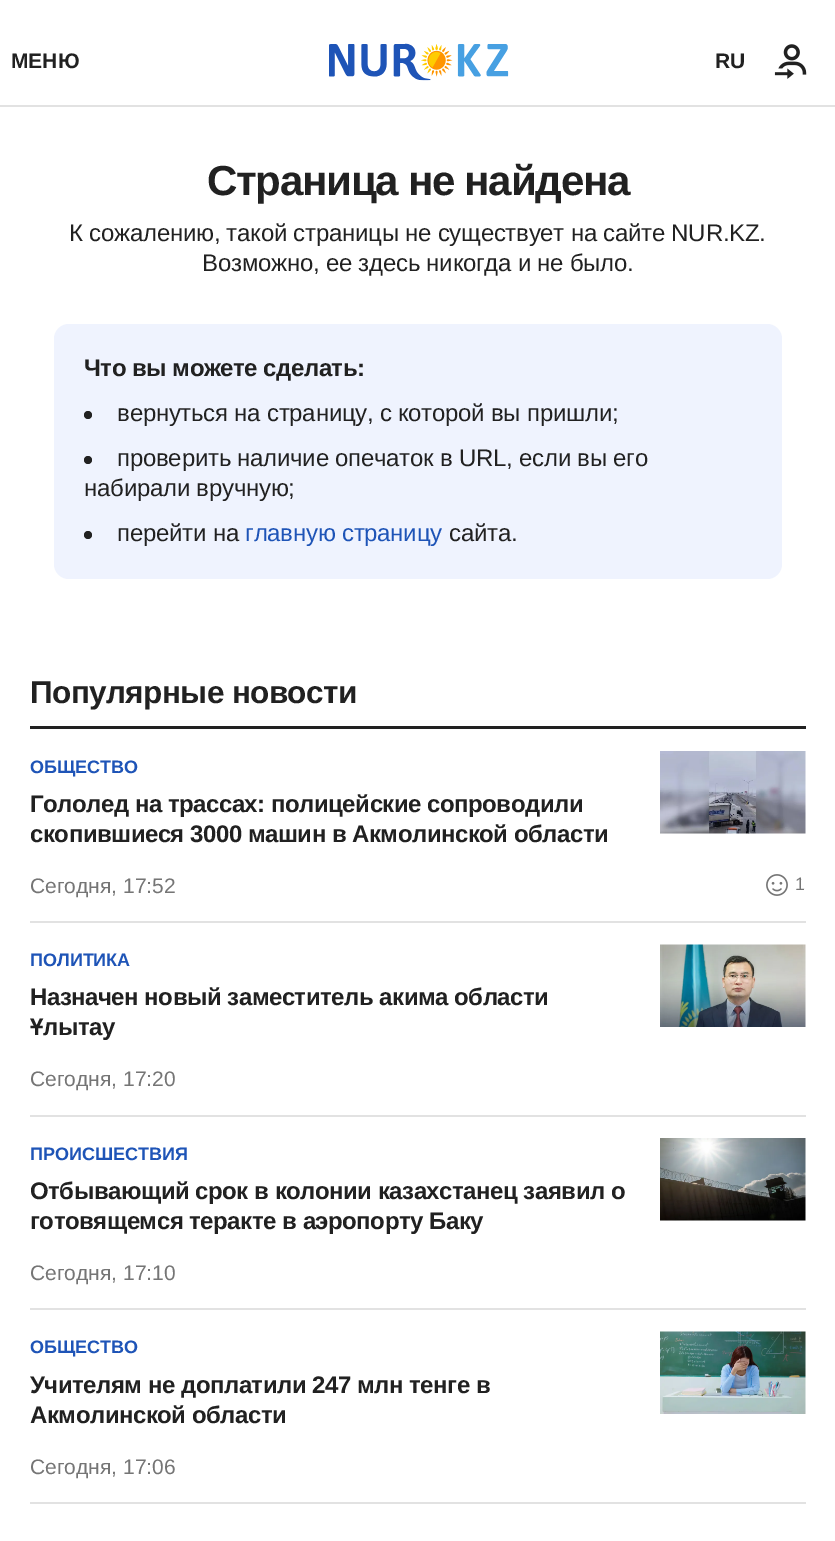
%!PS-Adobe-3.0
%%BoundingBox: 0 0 835 1541
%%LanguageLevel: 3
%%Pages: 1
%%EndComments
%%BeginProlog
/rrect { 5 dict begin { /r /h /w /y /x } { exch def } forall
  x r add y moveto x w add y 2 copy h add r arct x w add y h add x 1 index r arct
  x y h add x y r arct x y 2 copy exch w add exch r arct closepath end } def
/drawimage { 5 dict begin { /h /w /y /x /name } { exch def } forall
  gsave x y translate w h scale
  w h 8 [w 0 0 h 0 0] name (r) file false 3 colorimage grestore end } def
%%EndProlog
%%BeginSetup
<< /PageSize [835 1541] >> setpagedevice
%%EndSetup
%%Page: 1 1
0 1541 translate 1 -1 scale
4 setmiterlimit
1 setgray
0 0 835 1541 rectfill
0.886 setgray
0 105 835 2 rectfill
(images/1.raw) 329 43 180 38 drawimage
(images/2.raw) 774 44 33 35 drawimage
0.937 0.953 0.996 setrgbcolor
54 324 728 255 15 rrect fill
0.129 setgray
newpath 88 415 4 0 360 arc closepath fill
newpath 88 460 4 0 360 arc closepath fill
newpath 88 535 4 0 360 arc closepath fill
30 726 776 3 rectfill
0.886 setgray
30 921 776 2 rectfill
(images/3.raw) 660 751 146 83 drawimage
(images/4.raw) 766 874 22 22 drawimage
30 1115 776 2 rectfill
(images/5.raw) 660 944 146 83 drawimage
30 1308 776 2 rectfill
(images/6.raw) 660 1138 146 83 drawimage
30 1502 776 2 rectfill
(images/7.raw) 660 1331 146 83 drawimage
/LiberationSans-Bold [21 0 0 -21 0 0] selectfont
0.129 setgray
11 68 moveto (МЕНЮ) show
715 68 moveto (RU) show
/LiberationSans-Bold [42 0 0 -42 0 0] selectfont
207 195 moveto -1.25 0 (Страница не найдена) ashow
/LiberationSans-Regular [24 0 0 -24 0 0] selectfont
69 241 moveto -0.25 0 (К сожалению, такой страницы не существует на сайте NUR.KZ.) ashow
202 271 moveto -0.25 0 (Возможно, ее здесь никогда и не было.) ashow
/LiberationSans-Bold [24 0 0 -24 0 0] selectfont
84 376 moveto -0.5 0 (Что вы можете сделать:) ashow
/LiberationSans-Regular [24 0 0 -24 0 0] selectfont
117 421 moveto -0.25 0 (вернуться на страницу, с которой вы пришли;) ashow
117 466 moveto -0.25 0 (проверить наличие опечаток в URL, если вы его) ashow
84 496 moveto -0.25 0 (набирали вручную;) ashow
117 541 moveto -0.25 0 (перейти на) ashow
0.118 0.329 0.718 setrgbcolor
245 541 moveto -0.25 0 (главную страницу) ashow
0.129 setgray
449 541 moveto -0.25 0 (сайта.) ashow
/LiberationSans-Bold [31.5 0 0 -31.5 0 0] selectfont
30 703 moveto -0.6 0 (Популярные новости) ashow
/LiberationSans-Bold [18 0 0 -18 0 0] selectfont
0.118 0.329 0.718 setrgbcolor
30 773 moveto (ОБЩЕСТВО) show
/LiberationSans-Bold [24 0 0 -24 0 0] selectfont
0.129 setgray
30 812 moveto -0.5 0 (Гололед на трассах: полицейские сопроводили) ashow
30 842 moveto -0.5 0 (скопившиеся 3000 машин в Акмолинской области) ashow
/LiberationSans-Regular [21 0 0 -21 0 0] selectfont
0.459 setgray
30 893 moveto (Сегодня, 17:52) show
/LiberationSans-Regular [18 0 0 -18 0 0] selectfont
795 890 moveto (1) show
/LiberationSans-Bold [18 0 0 -18 0 0] selectfont
0.118 0.329 0.718 setrgbcolor
30 966 moveto (ПОЛИТИКА) show
/LiberationSans-Bold [24 0 0 -24 0 0] selectfont
0.129 setgray
30 1005 moveto -0.5 0 (Назначен новый заместитель акима области) ashow
30 1035 moveto -0.5 0 (Ұлытау) ashow
/LiberationSans-Regular [21 0 0 -21 0 0] selectfont
0.459 setgray
30 1086 moveto (Сегодня, 17:20) show
/LiberationSans-Bold [18 0 0 -18 0 0] selectfont
0.118 0.329 0.718 setrgbcolor
30 1160 moveto (ПРОИСШЕСТВИЯ) show
/LiberationSans-Bold [24 0 0 -24 0 0] selectfont
0.129 setgray
30 1199 moveto -0.5 0 (Отбывающий срок в колонии казахстанец заявил о) ashow
30 1229 moveto -0.5 0 (готовящемся теракте в аэропорту Баку) ashow
/LiberationSans-Regular [21 0 0 -21 0 0] selectfont
0.459 setgray
30 1280 moveto (Сегодня, 17:10) show
/LiberationSans-Bold [18 0 0 -18 0 0] selectfont
0.118 0.329 0.718 setrgbcolor
30 1353 moveto (ОБЩЕСТВО) show
/LiberationSans-Bold [24 0 0 -24 0 0] selectfont
0.129 setgray
30 1393 moveto -0.5 0 (Учителям не доплатили 247 млн тенге в) ashow
30 1423 moveto -0.5 0 (Акмолинской области) ashow
/LiberationSans-Regular [21 0 0 -21 0 0] selectfont
0.459 setgray
30 1474 moveto (Сегодня, 17:06) show
showpage
%%EOF
